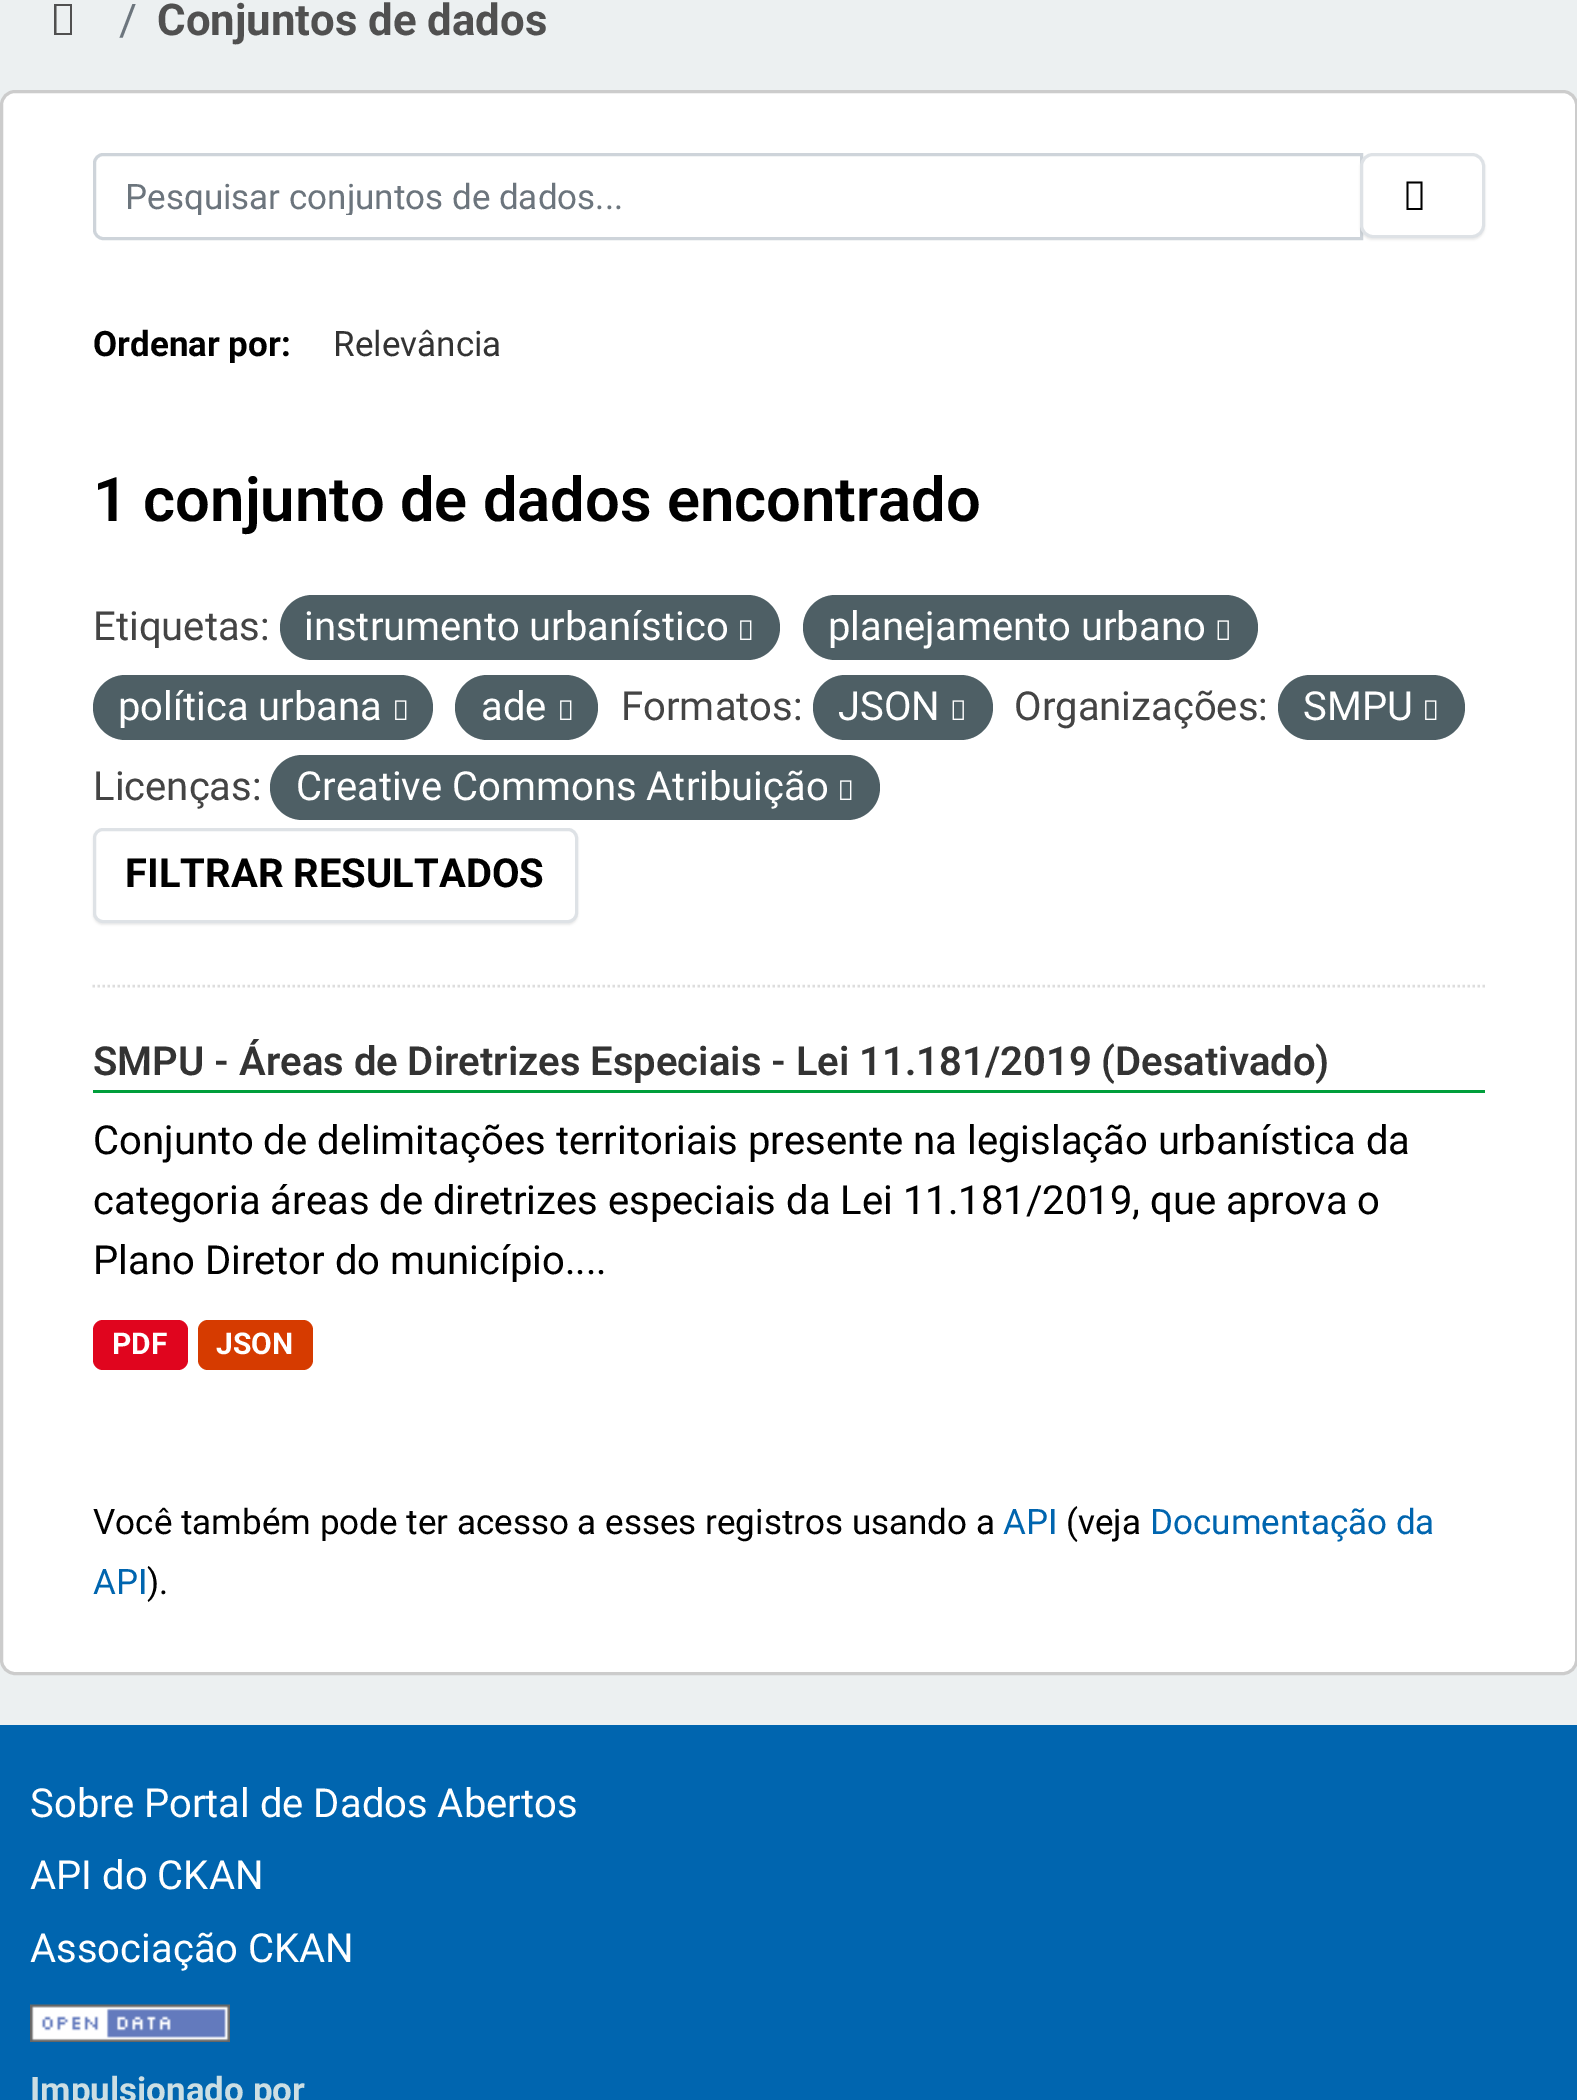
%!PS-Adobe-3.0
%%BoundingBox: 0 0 1577 2100
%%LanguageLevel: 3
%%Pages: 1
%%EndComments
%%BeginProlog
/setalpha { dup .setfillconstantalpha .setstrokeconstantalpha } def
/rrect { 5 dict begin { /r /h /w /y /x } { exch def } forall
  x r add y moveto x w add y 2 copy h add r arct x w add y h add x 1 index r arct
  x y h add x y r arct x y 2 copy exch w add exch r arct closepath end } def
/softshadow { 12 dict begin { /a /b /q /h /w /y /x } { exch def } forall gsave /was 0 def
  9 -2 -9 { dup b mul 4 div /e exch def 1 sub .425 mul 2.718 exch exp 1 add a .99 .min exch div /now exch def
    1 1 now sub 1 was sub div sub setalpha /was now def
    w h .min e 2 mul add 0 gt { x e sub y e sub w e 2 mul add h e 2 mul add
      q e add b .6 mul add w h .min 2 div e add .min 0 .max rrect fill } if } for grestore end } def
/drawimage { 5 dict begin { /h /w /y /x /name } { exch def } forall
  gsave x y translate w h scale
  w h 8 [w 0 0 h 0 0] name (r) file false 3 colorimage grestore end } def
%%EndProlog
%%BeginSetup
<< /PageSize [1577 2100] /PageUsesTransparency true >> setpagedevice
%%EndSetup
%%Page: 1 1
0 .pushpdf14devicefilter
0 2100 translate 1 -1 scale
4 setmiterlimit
0.925 0.941 0.945 setrgbcolor
0 0 1577 2100 rectfill
0.314 setgray
newpath 54 35 moveto 54 4 lineto 72 4 lineto 72 35 lineto closepath 56.5 33 moveto 70 33 lineto 70 6 lineto 56.5 6 lineto closepath fill
1 setgray
1.5 91.5 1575 1582 13.5 rrect gsave fill grestore
0.8 setgray
3 setlinewidth
stroke
0.867 setgray
2.5 setlinewidth
[2.5 2.5] 0 setdash
newpath 92.5 986 moveto 1485 986 lineto stroke
0.808 0.831 0.855 setrgbcolor
3 setlinewidth
[] 0 setdash
newpath 103 154.5 moveto 1361.5 154.5 lineto 1361.5 238.5 lineto 103 238.5 lineto 98.5 238.5 94.5 234.5 94.5 230 curveto 94.5 163 lineto 94.5 158.5 98.5 154.5 103 154.5 curveto closepath stroke
0 setgray
1360 155 125 85 13 1 0.07 softshadow
1 setgray
1361.5 154.5 122 82 11.5 rrect gsave fill grestore
0.871 0.886 0.902 setrgbcolor
stroke
0 setgray
newpath 1406.5 210 moveto 1406.5 181.5 lineto 1422.5 181.5 lineto 1422.5 210 lineto closepath 1408.5 208 moveto 1420.5 208 lineto 1420.5 183.5 lineto 1408.5 183.5 lineto closepath fill
0.306 0.373 0.396 setrgbcolor
280 595 500 65 32.5 rrect fill
(images/1.raw) 740 620 12 20 drawimage
803 595 455 65 32.5 rrect fill
(images/2.raw) 1217 620 12 20 drawimage
93 675 340 65 32.5 rrect fill
(images/1.raw) 395 700 12 20 drawimage
455 675 143 65 32.5 rrect fill
(images/1.raw) 560 700 12 20 drawimage
813 675 180 65 32.5 rrect fill
(images/2.raw) 952 700 12 20 drawimage
1278 675 187 65 32.5 rrect fill
(images/1.raw) 1425 700 12 20 drawimage
270 755 610 65 32.5 rrect fill
(images/1.raw) 840 780 12 20 drawimage
0 setgray
93 830 485 95 10 1 0.07 softshadow
1 setgray
94.5 829.5 482 92 8.5 rrect gsave fill grestore
0.871 0.886 0.902 setrgbcolor
stroke
0 0.62 0.231 setrgbcolor
93 1090 1392 3 rectfill
0.878 0.02 0.118 setrgbcolor
93 1320 95 50 10 rrect fill
0.839 0.231 0 setrgbcolor
198 1320 115 50 10 rrect fill
0 0.396 0.686 setrgbcolor
0 1725 1577 375 rectfill
(images/3.raw) 30 2004 200 38 drawimage
/Roboto-Regular [43.75 0 0 -43.75 0 0] selectfont
0.424 0.459 0.49 setrgbcolor
119 35 moveto (/) show
/Roboto-Bold [43.75 0 0 -43.75 0 0] selectfont
0.314 setgray
157 35 moveto (Conjuntos de dados) show
gsave
125 175 1205 40 rectclip
/Roboto-Regular [35 0 0 -35 0 0] selectfont
0.424 0.459 0.49 setrgbcolor
125 209 moveto (Pesquisar conjuntos de dados...) show
grestore
/Roboto-Bold [35 0 0 -35 0 0] selectfont
0 setgray
93 356 moveto (Ordenar por:) show
/Roboto-Regular [35 0 0 -35 0 0] selectfont
0.2 setgray
333 356 moveto (Relevância) show
/Roboto-SemiBold [61.5 0 0 -61.5 0 0] selectfont
0 setgray
93 521 moveto (1 conjunto de dados encontrado) show
/Roboto-Regular [40 0 0 -40 0 0] selectfont
0.267 setgray
93 640 moveto (Etiquetas:) show
1 setgray
304 640 moveto (instrumento urbanístico) show
828 640 moveto (planejamento urbano) show
118 720 moveto (política urbana) show
481 720 moveto (ade) show
0.267 setgray
621 720 moveto (Formatos:) show
1 setgray
838 720 moveto (JSON) show
0.267 setgray
1014 720 moveto (Organizações:) show
1 setgray
1303 720 moveto (SMPU) show
0.267 setgray
93 800 moveto (Licenças:) show
1 setgray
296 800 moveto (Creative Commons Atribuição) show
/Roboto-Bold [40 0 0 -40 0 0] selectfont
0 setgray
125 887 moveto (FILTRAR RESULTADOS) show
/Roboto-SemiBold [40 0 0 -40 0 0] selectfont
0.2 setgray
93 1075 moveto (SMPU - Áreas de Diretrizes Especiais - Lei 11.181/2019 \(Desativado\)) show
/Roboto-Regular [40 0 0 -40 0 0] selectfont
0 setgray
93 1154 moveto (Conjunto de delimitações territoriais presente na legislação urbanística da) show
93 1214 moveto (categoria áreas de diretrizes especiais da Lei 11.181/2019, que aprova o) show
93 1274 moveto (Plano Diretor do município....) show
/Roboto-Bold [30 0 0 -30 0 0] selectfont
1 setgray
112 1354 moveto (PDF) show
216 1354 moveto (JSON) show
/Roboto-Regular [35 0 0 -35 0 0] selectfont
0 setgray
93 1534 moveto (Você também pode ter acesso a esses registros usando a) show
0 0.396 0.686 setrgbcolor
1003 1534 moveto (API) show
0 setgray
1066 1534 moveto (\(veja) show
0 0.396 0.686 setrgbcolor
1150 1534 moveto (Documentação da) show
93 1594 moveto (API) show
0 setgray
147 1594 moveto (\).) show
/Roboto-Regular [40 0 0 -40 0 0] selectfont
1 setgray
30 1817 moveto (Sobre Portal de Dados Abertos) show
30 1889 moveto (API do CKAN) show
30 1962 moveto (Associação CKAN) show
/Roboto-Bold [35 0 0 -35 0 0] selectfont
0.8 0.871 0.89 setrgbcolor
30 2102 moveto (Impulsionado por) show
.poppdf14devicefilter showpage
%%EOF
